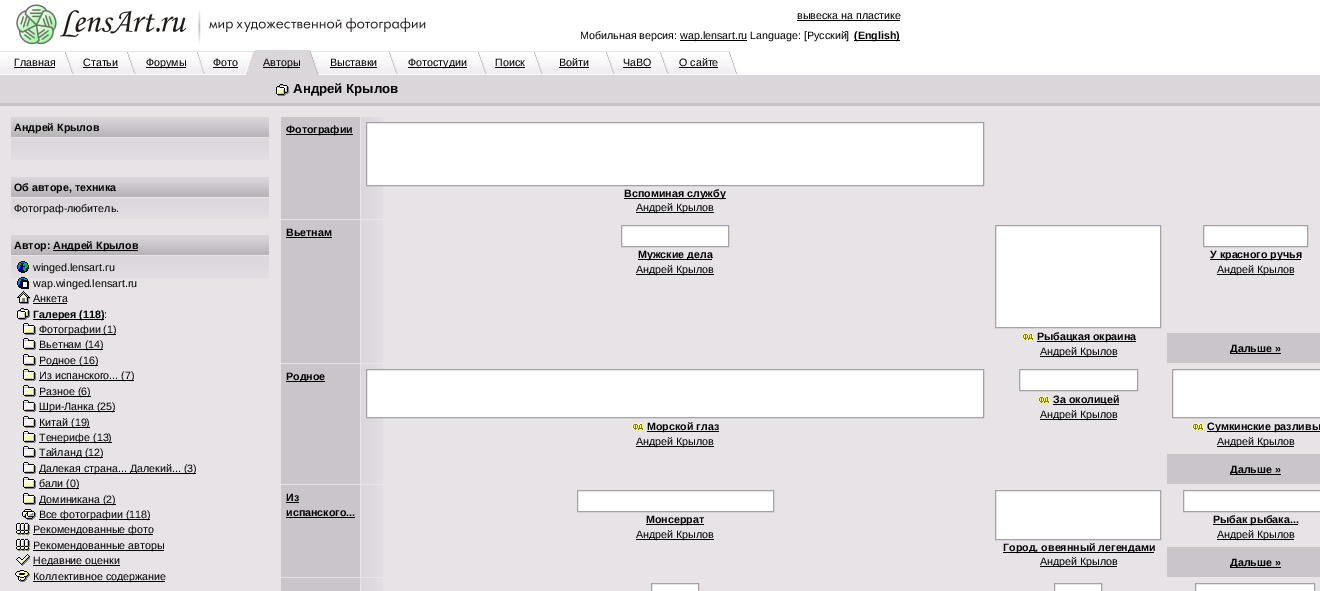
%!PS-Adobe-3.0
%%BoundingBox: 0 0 1320 591
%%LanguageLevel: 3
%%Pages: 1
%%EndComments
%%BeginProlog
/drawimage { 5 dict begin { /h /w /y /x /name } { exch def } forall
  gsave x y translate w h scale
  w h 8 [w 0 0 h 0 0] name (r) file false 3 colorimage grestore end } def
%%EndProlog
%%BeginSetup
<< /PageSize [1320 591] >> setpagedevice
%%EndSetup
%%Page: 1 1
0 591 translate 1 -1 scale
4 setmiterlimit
0.906 0.89 0.906 setrgbcolor
0 0 1320 591 rectfill
1 setgray
0 0 1320 50 rectfill
(images/1.raw) 16 0 416 48 drawimage
0 setgray
797 20 103 1 rectfill
680 40 67 1 rectfill
854 40 46 1 rectfill
(images/2.raw) 0 50 5 25 drawimage
(images/3.raw) 5 50 59 25 drawimage
14 67 41 1 rectfill
(images/4.raw) 64 50 10 25 drawimage
(images/5.raw) 74 50 52 25 drawimage
83 67 35 1 rectfill
(images/4.raw) 126 50 10 25 drawimage
(images/6.raw) 136 50 60 25 drawimage
146 67 40 1 rectfill
(images/7.raw) 196 50 9 25 drawimage
(images/8.raw) 205 50 40 25 drawimage
213 67 25 1 rectfill
(images/9.raw) 245 50 10 25 drawimage
0.855 0.839 0.855 setrgbcolor
255 50 55 25 rectfill
0 setgray
263 67 37 1 rectfill
(images/10.raw) 310 50 9 25 drawimage
(images/11.raw) 319 50 69 25 drawimage
330 67 47 1 rectfill
(images/4.raw) 388 50 10 25 drawimage
(images/12.raw) 398 50 79 25 drawimage
408 67 59 1 rectfill
(images/4.raw) 477 50 10 25 drawimage
(images/13.raw) 487 50 46 25 drawimage
495 67 30 1 rectfill
(images/4.raw) 533 50 10 25 drawimage
(images/14.raw) 543 50 62 25 drawimage
559 67 30 1 rectfill
(images/4.raw) 605 50 10 25 drawimage
(images/15.raw) 615 50 44 25 drawimage
623 67 28 1 rectfill
(images/4.raw) 659 50 10 25 drawimage
(images/3.raw) 669 50 59 25 drawimage
679 67 39 1 rectfill
(images/16.raw) 728 50 10 25 drawimage
1 setgray
738 50 582 25 rectfill
0.855 0.839 0.855 setrgbcolor
0 75 1320 28 rectfill
(images/17.raw) 276 84 13 12 drawimage
0.78 0.761 0.78 setrgbcolor
0 103 1320 3 rectfill
(images/18.raw) 11 117 258 20 drawimage
(images/19.raw) 11 138 258 22 drawimage
(images/18.raw) 11 177 258 20 drawimage
(images/20.raw) 11 198 258 21 drawimage
(images/18.raw) 11 235 258 20 drawimage
0 setgray
53 250 85 1 rectfill
(images/19.raw) 11 256 258 22 drawimage
(images/21.raw) 17 261 12 12 drawimage
(images/22.raw) 17 277 12 12 drawimage
(images/23.raw) 17 291 13 13 drawimage
33 303 34 1 rectfill
(images/24.raw) 17 308 13 12 drawimage
33 319 71 1 rectfill
(images/25.raw) 23 323 13 12 drawimage
39 334 77 1 rectfill
(images/25.raw) 23 338 13 12 drawimage
39 349 64 1 rectfill
(images/25.raw) 23 354 13 12 drawimage
39 365 59 1 rectfill
(images/25.raw) 23 369 13 12 drawimage
39 380 95 1 rectfill
(images/25.raw) 23 385 13 12 drawimage
39 396 52 1 rectfill
(images/25.raw) 23 400 13 12 drawimage
39 411 76 1 rectfill
(images/25.raw) 23 416 13 12 drawimage
39 427 51 1 rectfill
(images/25.raw) 23 431 13 12 drawimage
39 442 73 1 rectfill
(images/25.raw) 23 446 13 12 drawimage
39 457 64 1 rectfill
(images/25.raw) 23 462 13 12 drawimage
39 473 157 1 rectfill
(images/25.raw) 23 477 13 12 drawimage
39 488 40 1 rectfill
(images/25.raw) 23 493 13 12 drawimage
39 504 77 1 rectfill
(images/26.raw) 22 509 14 11 drawimage
39 519 111 1 rectfill
(images/27.raw) 16 523 14 12 drawimage
33 534 120 1 rectfill
(images/27.raw) 16 539 14 12 drawimage
33 550 131 1 rectfill
(images/28.raw) 16 554 14 12 drawimage
33 565 87 1 rectfill
(images/29.raw) 15 570 15 12 drawimage
33 581 132 1 rectfill
0.792 0.773 0.792 setrgbcolor
281 117 79 102 rectfill
0 setgray
286 134 67 1 rectfill
(images/30.raw) 361 117 22 102 drawimage
1 setgray
newpath 366.5 122.5 moveto 983.5 122.5 lineto 983.5 185.5 lineto 366.5 185.5 lineto closepath gsave fill grestore
0.647 0.635 0.647 setrgbcolor
stroke
0 setgray
624 198 102 1 rectfill
636 212 78 1 rectfill
0.792 0.773 0.792 setrgbcolor
281 220 79 143 rectfill
0 setgray
286 237 46 1 rectfill
(images/31.raw) 361 220 22 143 drawimage
1 setgray
newpath 621.5 225.5 moveto 728.5 225.5 lineto 728.5 246.5 lineto 621.5 246.5 lineto closepath gsave fill grestore
0.647 0.635 0.647 setrgbcolor
stroke
0 setgray
638 259 74 1 rectfill
636 274 78 1 rectfill
1 setgray
newpath 1203.5 225.5 moveto 1307.5 225.5 lineto 1307.5 246.5 lineto 1203.5 246.5 lineto closepath gsave fill grestore
0.647 0.635 0.647 setrgbcolor
stroke
0 setgray
1210 259 91 1 rectfill
1217 274 77 1 rectfill
1 setgray
newpath 995.5 225.5 moveto 1160.5 225.5 lineto 1160.5 327.5 lineto 995.5 327.5 lineto closepath gsave fill grestore
0.647 0.635 0.647 setrgbcolor
stroke
(images/32.raw) 1022 333 12 8 drawimage
0 setgray
1037 341 99 1 rectfill
1040 356 77 1 rectfill
0.792 0.773 0.792 setrgbcolor
1167 333 153 30 rectfill
0 setgray
1230 353 51 1 rectfill
0.792 0.773 0.792 setrgbcolor
281 364 79 120 rectfill
0 setgray
286 381 39 1 rectfill
1 setgray
newpath 1019.5 369.5 moveto 1137.5 369.5 lineto 1137.5 390.5 lineto 1019.5 390.5 lineto closepath gsave fill grestore
0.647 0.635 0.647 setrgbcolor
stroke
(images/32.raw) 1038 396 12 8 drawimage
0 setgray
1053 404 66 1 rectfill
1040 419 77 1 rectfill
(images/33.raw) 361 364 22 120 drawimage
1 setgray
newpath 366.5 369.5 moveto 983.5 369.5 lineto 983.5 417.5 lineto 366.5 417.5 lineto closepath gsave fill grestore
0.647 0.635 0.647 setrgbcolor
stroke
(images/32.raw) 632 423 12 8 drawimage
0 setgray
647 431 72 1 rectfill
636 446 78 1 rectfill
1 setgray
newpath 1172.5 369.5 moveto 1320.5 369.5 lineto 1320.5 417.5 lineto 1172.5 417.5 lineto closepath gsave fill grestore
0.647 0.635 0.647 setrgbcolor
stroke
(images/32.raw) 1192 423 12 8 drawimage
0 setgray
1207 431 113 1 rectfill
1217 446 77 1 rectfill
0.792 0.773 0.792 setrgbcolor
1167 454 153 30 rectfill
0 setgray
1230 474 51 1 rectfill
0.792 0.773 0.792 setrgbcolor
281 485 79 92 rectfill
0 setgray
286 502 13 1 rectfill
286 517 69 1 rectfill
(images/34.raw) 361 485 22 92 drawimage
1 setgray
newpath 577.5 490.5 moveto 773.5 490.5 lineto 773.5 511.5 lineto 577.5 511.5 lineto closepath gsave fill grestore
0.647 0.635 0.647 setrgbcolor
stroke
0 setgray
646 524 58 1 rectfill
636 539 78 1 rectfill
1 setgray
newpath 1183.5 490.5 moveto 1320.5 490.5 lineto 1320.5 511.5 lineto 1183.5 511.5 lineto closepath gsave fill grestore
0.647 0.635 0.647 setrgbcolor
stroke
0 setgray
1213 524 85 1 rectfill
1217 539 77 1 rectfill
1 setgray
newpath 995.5 490.5 moveto 1160.5 490.5 lineto 1160.5 539.5 lineto 995.5 539.5 lineto closepath gsave fill grestore
0.647 0.635 0.647 setrgbcolor
stroke
0 setgray
1003 552 151 1 rectfill
1040 566 77 1 rectfill
0.792 0.773 0.792 setrgbcolor
1167 547 153 30 rectfill
0 setgray
1230 567 51 1 rectfill
0.792 0.773 0.792 setrgbcolor
281 578 79 13 rectfill
(images/35.raw) 361 578 22 13 drawimage
1 setgray
newpath 651.5 583.5 moveto 698.5 583.5 lineto 698.5 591.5 lineto 651.5 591.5 lineto closepath gsave fill grestore
0.647 0.635 0.647 setrgbcolor
stroke
1 setgray
newpath 1054.5 583.5 moveto 1101.5 583.5 lineto 1101.5 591.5 lineto 1054.5 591.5 lineto closepath gsave fill grestore
0.647 0.635 0.647 setrgbcolor
stroke
1 setgray
newpath 1195.5 583.5 moveto 1314.5 583.5 lineto 1314.5 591.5 lineto 1195.5 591.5 lineto closepath gsave fill grestore
0.647 0.635 0.647 setrgbcolor
stroke
/LiberationSans-Regular [10.7 0 0 -10.7 0 0] selectfont
0 setgray
797 19 moveto (вывеска на пластике) show
580 39 moveto (Мобильная версия:) show
680 39 moveto (wap.lensart.ru Language: [Русский]) show
/LiberationSans-Bold [10.7 0 0 -10.7 0 0] selectfont
854 39 moveto (\(English\)) show
/LiberationSans-Regular [10.7 0 0 -10.7 0 0] selectfont
14 66 moveto (Главная) show
83 66 moveto (Статьи) show
146 66 moveto (Форумы) show
213 66 moveto (Фото) show
263 66 moveto (Авторы) show
330 66 moveto (Выставки) show
408 66 moveto (Фотостудии) show
495 66 moveto (Поиск) show
559 66 moveto (Войти) show
623 66 moveto (ЧаВО) show
679 66 moveto (О сайте) show
/LiberationSans-Bold [13.25 0 0 -13.25 0 0] selectfont
293 93 moveto (Андрей Крылов) show
/LiberationSans-Bold [10.7 0 0 -10.7 0 0] selectfont
14 131 moveto (Андрей Крылов) show
14 191 moveto (Об авторе, техника) show
/LiberationSans-Regular [10.7 0 0 -10.7 0 0] selectfont
14 212 moveto (Фотограф-любитель.) show
/LiberationSans-Bold [10.7 0 0 -10.7 0 0] selectfont
14 249 moveto (Автор:) show
53 249 moveto (Андрей Крылов) show
/LiberationSans-Regular [10.7 0 0 -10.7 0 0] selectfont
33 271 moveto (winged.lensart.ru) show
33 287 moveto (wap.winged.lensart.ru) show
33 302 moveto (Анкета) show
/LiberationSans-Bold [10.7 0 0 -10.7 0 0] selectfont
33 318 moveto (Галерея \(118\)) show
/LiberationSans-Regular [10.7 0 0 -10.7 0 0] selectfont
104 318 moveto (:) show
39 333 moveto (Фотографии \(1\)) show
39 348 moveto (Вьетнам \(14\)) show
39 364 moveto (Родное \(16\)) show
39 379 moveto (Из испанского... \(7\)) show
39 395 moveto (Разное \(6\)) show
39 410 moveto (Шри-Ланка \(25\)) show
39 426 moveto (Китай \(19\)) show
39 441 moveto (Тенерифе \(13\)) show
39 456 moveto (Тайланд \(12\)) show
39 472 moveto (Далекая страна... Далекий... \(3\)) show
39 487 moveto (бали \(0\)) show
39 503 moveto (Доминикана \(2\)) show
39 518 moveto (Все фотографии \(118\)) show
33 533 moveto (Рекомендованные фото) show
33 549 moveto (Рекомендованные авторы) show
33 564 moveto (Недавние оценки) show
33 580 moveto (Коллективное содержание) show
/LiberationSans-Bold [10.7 0 0 -10.7 0 0] selectfont
286 133 moveto (Фотографии) show
624 197 moveto (Вспоминая службу) show
/LiberationSans-Regular [10.7 0 0 -10.7 0 0] selectfont
636 211 moveto (Андрей Крылов) show
/LiberationSans-Bold [10.7 0 0 -10.7 0 0] selectfont
286 236 moveto (Вьетнам) show
638 258 moveto (Мужские дела) show
/LiberationSans-Regular [10.7 0 0 -10.7 0 0] selectfont
636 273 moveto (Андрей Крылов) show
/LiberationSans-Bold [10.7 0 0 -10.7 0 0] selectfont
1210 258 moveto (У красного ручья) show
/LiberationSans-Regular [10.7 0 0 -10.7 0 0] selectfont
1217 273 moveto (Андрей Крылов) show
/LiberationSans-Bold [10.7 0 0 -10.7 0 0] selectfont
1037 340 moveto (Рыбацкая окраина) show
/LiberationSans-Regular [10.7 0 0 -10.7 0 0] selectfont
1040 355 moveto (Андрей Крылов) show
/LiberationSans-Bold [10.7 0 0 -10.7 0 0] selectfont
1230 352 moveto (Дальше ») show
286 380 moveto (Родное) show
1053 403 moveto (За околицей) show
/LiberationSans-Regular [10.7 0 0 -10.7 0 0] selectfont
1040 418 moveto (Андрей Крылов) show
/LiberationSans-Bold [10.7 0 0 -10.7 0 0] selectfont
647 430 moveto (Морской глаз) show
/LiberationSans-Regular [10.7 0 0 -10.7 0 0] selectfont
636 445 moveto (Андрей Крылов) show
/LiberationSans-Bold [10.7 0 0 -10.7 0 0] selectfont
1207 430 moveto (Сумкинские разливы) show
/LiberationSans-Regular [10.7 0 0 -10.7 0 0] selectfont
1217 445 moveto (Андрей Крылов) show
/LiberationSans-Bold [10.7 0 0 -10.7 0 0] selectfont
1230 473 moveto (Дальше ») show
286 501 moveto (Из) show
286 516 moveto (испанского...) show
646 523 moveto (Монсеррат) show
/LiberationSans-Regular [10.7 0 0 -10.7 0 0] selectfont
636 538 moveto (Андрей Крылов) show
/LiberationSans-Bold [10.7 0 0 -10.7 0 0] selectfont
1213 523 moveto (Рыбак рыбака...) show
/LiberationSans-Regular [10.7 0 0 -10.7 0 0] selectfont
1217 538 moveto (Андрей Крылов) show
/LiberationSans-Bold [10.7 0 0 -10.7 0 0] selectfont
1003 551 moveto (Город, овеянный легендами) show
/LiberationSans-Regular [10.7 0 0 -10.7 0 0] selectfont
1040 565 moveto (Андрей Крылов) show
/LiberationSans-Bold [10.7 0 0 -10.7 0 0] selectfont
1230 566 moveto (Дальше ») show
showpage
%%EOF
